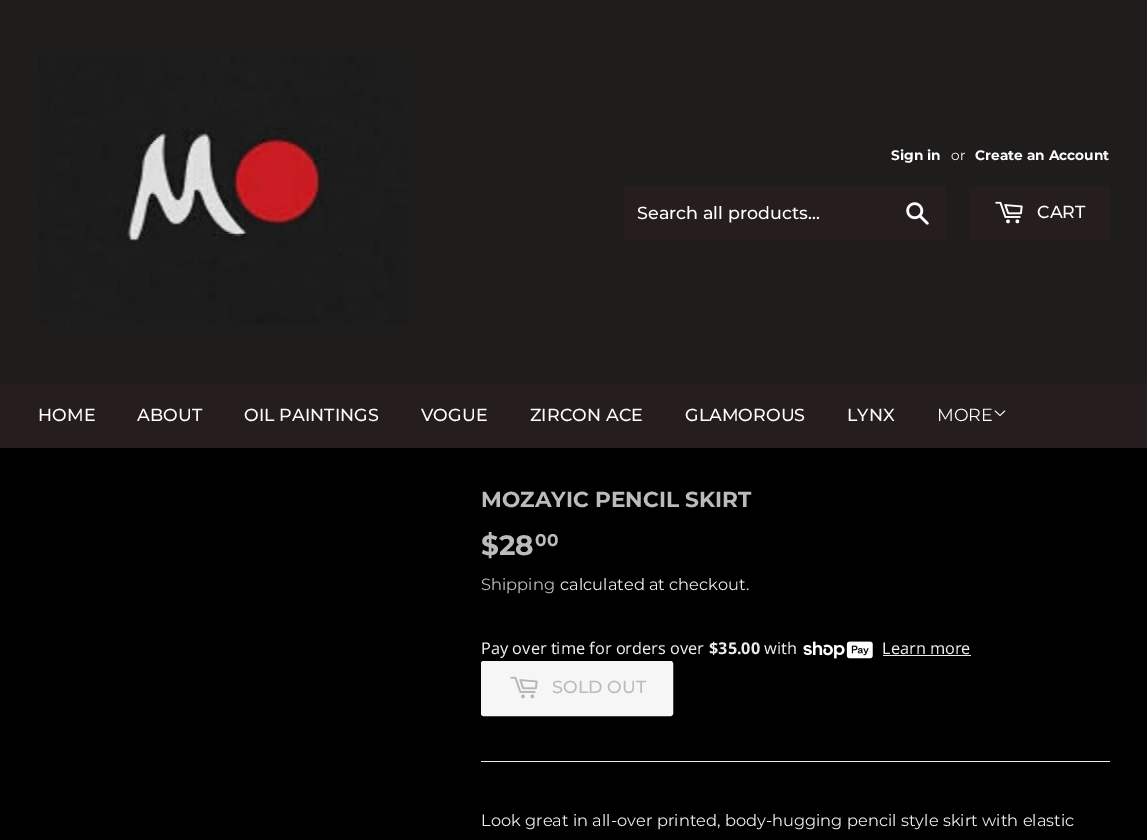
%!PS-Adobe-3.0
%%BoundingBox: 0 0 1147 840
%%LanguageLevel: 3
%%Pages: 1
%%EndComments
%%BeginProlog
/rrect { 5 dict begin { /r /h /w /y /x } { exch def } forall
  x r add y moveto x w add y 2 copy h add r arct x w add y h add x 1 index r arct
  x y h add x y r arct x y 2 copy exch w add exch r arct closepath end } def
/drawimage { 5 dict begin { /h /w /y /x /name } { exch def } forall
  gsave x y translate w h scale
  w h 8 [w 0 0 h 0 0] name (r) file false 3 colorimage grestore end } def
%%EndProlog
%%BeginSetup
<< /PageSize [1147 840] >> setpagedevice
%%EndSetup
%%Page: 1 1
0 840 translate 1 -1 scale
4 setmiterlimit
0 setgray
0 0 1147 840 rectfill
0.122 0.11 0.11 setrgbcolor
0 0 1147 383 rectfill
(images/1.raw) 38 56 371 269 drawimage
0.149 0.118 0.118 setrgbcolor
624 186 322 55 2.5 rrect fill
(images/2.raw) 906 202 23 23 drawimage
969 186 141 55 2.5 rrect fill
(images/3.raw) 995 201 28 23 drawimage
0 383 1147 65 rectfill
(images/4.raw) 994 410 12 7 drawimage
(images/5.raw) 803 641 70 18 drawimage
0.925 setgray
883 655 88 1 rectfill
0.965 setgray
482.5 662.5 189 52 1 rrect gsave fill grestore
3 setlinewidth
stroke
(images/6.raw) 510 676 28 23 drawimage
0.925 setgray
481 761 629 1 rectfill
/Montserrat-Bold [13.75 0 0 -13.75 0 0] selectfont
1 setgray
891 160 moveto (Sign in) show
/Montserrat-Regular [13.75 0 0 -13.75 0 0] selectfont
951 160 moveto (or) show
/Montserrat-Bold [13.75 0 0 -13.75 0 0] selectfont
975 160 moveto (Create an Account) show
/Montserrat-Medium [17.5 0 0 -17.5 0 0] selectfont
637 219 moveto (Search all products...) show
1037 218 moveto (CART) show
38 421 moveto (HOME) show
137 421 moveto (ABOUT) show
244 421 moveto (OIL PAINTINGS) show
421 421 moveto (VOGUE) show
530 421 moveto (ZIRCON ACE) show
685 421 moveto (GLAMOROUS) show
847 421 moveto (LYNX) show
/Montserrat-Regular [17.5 0 0 -17.5 0 0] selectfont
937 421 moveto (MORE) show
/Montserrat-Bold [21.7 0 0 -21.7 0 0] selectfont
0.733 setgray
481 507 moveto (MOZAYIC PENCIL SKIRT) show
/Montserrat-Bold [28 0 0 -28 0 0] selectfont
481 555 moveto ($28) show
/Montserrat-Bold [17 0 0 -17 0 0] selectfont
535 546 moveto (00) show
/Montserrat-Regular [16.25 0 0 -16.25 0 0] selectfont
481 590 moveto (Shipping) show
0.925 setgray
560 590 moveto (calculated at checkout.) show
/NotoSans-Regular [16.25 0 0 -16.25 0 0] selectfont
481 654 moveto (Pay over time for orders over) show
/NotoSans-Bold [16.25 0 0 -16.25 0 0] selectfont
709 654 moveto ($35.00) show
/NotoSans-Regular [16.25 0 0 -16.25 0 0] selectfont
764 654 moveto (with) show
882 654 moveto (Learn more) show
/Montserrat-Medium [17.5 0 0 -17.5 0 0] selectfont
0.733 setgray
552 693 moveto (SOLD OUT) show
/Montserrat-Regular [16.25 0 0 -16.25 0 0] selectfont
0.925 setgray
481 826 moveto (Look great in all-over printed, body-hugging pencil style skirt with elastic) show
showpage
%%EOF
